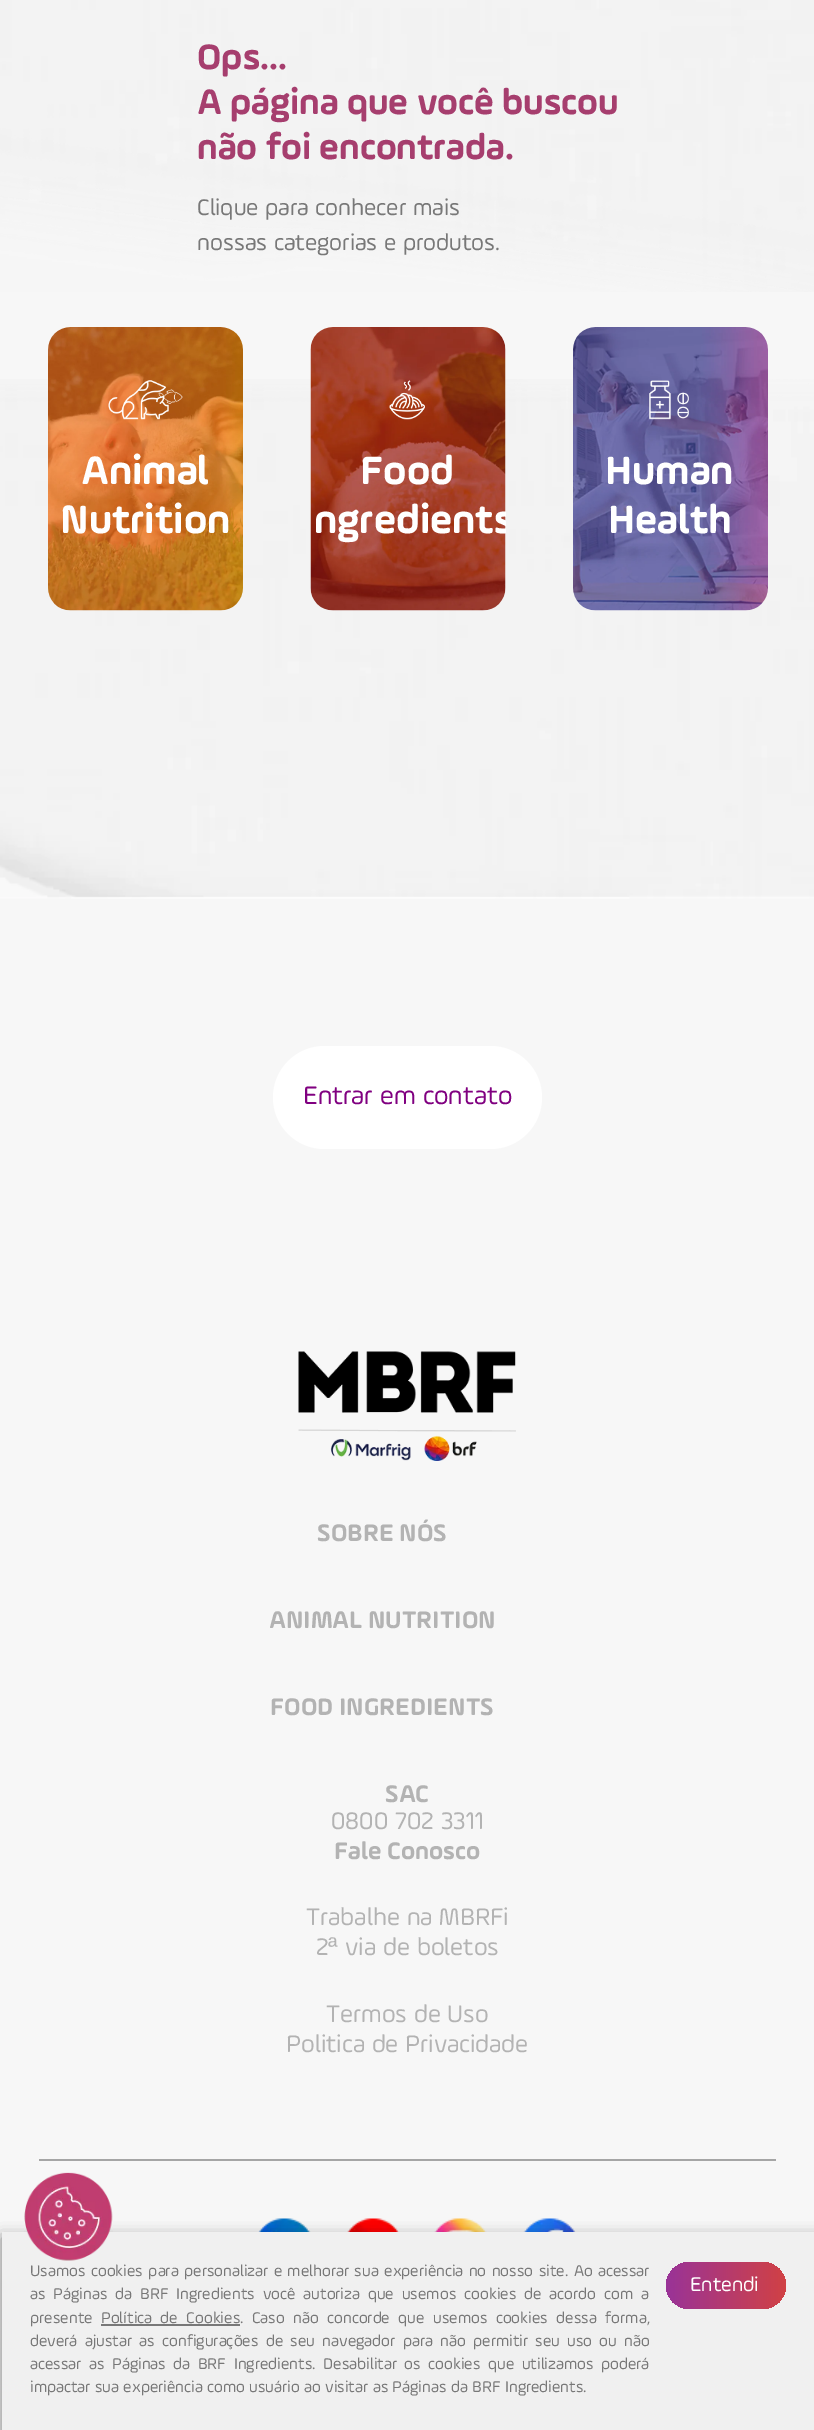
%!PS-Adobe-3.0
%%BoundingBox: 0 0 814 2430
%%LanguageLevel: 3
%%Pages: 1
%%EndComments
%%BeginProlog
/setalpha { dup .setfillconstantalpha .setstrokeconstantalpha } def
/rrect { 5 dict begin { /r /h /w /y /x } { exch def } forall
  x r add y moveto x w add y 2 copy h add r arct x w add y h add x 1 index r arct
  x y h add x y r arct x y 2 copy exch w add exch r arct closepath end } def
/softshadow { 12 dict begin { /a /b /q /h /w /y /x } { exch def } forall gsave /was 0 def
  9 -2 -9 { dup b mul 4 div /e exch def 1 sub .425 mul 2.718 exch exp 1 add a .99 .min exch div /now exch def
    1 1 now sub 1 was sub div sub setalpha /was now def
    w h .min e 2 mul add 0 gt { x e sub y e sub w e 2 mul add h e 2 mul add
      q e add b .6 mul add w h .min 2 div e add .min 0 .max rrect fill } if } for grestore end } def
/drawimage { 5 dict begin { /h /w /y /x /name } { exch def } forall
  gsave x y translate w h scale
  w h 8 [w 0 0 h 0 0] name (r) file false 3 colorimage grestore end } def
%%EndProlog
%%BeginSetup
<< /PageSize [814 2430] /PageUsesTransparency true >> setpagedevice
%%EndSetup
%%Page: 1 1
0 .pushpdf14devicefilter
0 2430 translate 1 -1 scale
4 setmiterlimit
0.969 setgray
0 0 814 2430 rectfill
(images/1.raw) 0 0 814 292 drawimage
(images/8.raw) 0 379 814 520 drawimage
(images/2.raw) 48 327 195 284 drawimage
(images/3.raw) 108 380 75 40 drawimage
(images/4.raw) 310 327 196 284 drawimage
(images/5.raw) 389 380 36 40 drawimage
(images/6.raw) 573 327 195 284 drawimage
(images/7.raw) 649 380 40 40 drawimage
1 setgray
273 1046 269 103 51.5 rrect fill
0.647 setgray
39 2159 737 2 rectfill
(images/9.raw) 298 1351 218 110 drawimage
(images/10.raw) 258 2218 53 14 drawimage
(images/11.raw) 347 2218 53 14 drawimage
(images/12.raw) 434 2218 53 14 drawimage
(images/13.raw) 523 2218 53 14 drawimage
gsave
newpath 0 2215 moveto 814 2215 lineto 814 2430 lineto 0 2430 lineto closepath 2 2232 moveto 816 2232 lineto 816 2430 lineto 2 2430 lineto closepath eoclip newpath
0 setgray
2 2237 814 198 0 7 0.5 softshadow
grestore
0.941 setgray
2 2232 812 198 rectfill
(images/14.raw) 24 2172 89 89 drawimage
0.471 setgray
101 2324 139 2 rectfill
gsave 666 2262 120 47 23.5 rrect clip newpath
<< /ShadingType 2 /ColorSpace /DeviceRGB /Coords [665 2285 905 2285] /Extend [true true] /Function << /FunctionType 3 /Domain [0 1] /Functions [<< /FunctionType 2 /Domain [0 1] /C0 [0.6 0.2 0.6] /C1 [0.816 0.255 0.271] /N 1 >> << /FunctionType 2 /Domain [0 1] /C0 [0.816 0.255 0.271] /C1 [0.6 0.2 0.6] /N 1 >>] /Bounds [0.5] /Encode [0 1 0 1] >> >> shfill grestore
/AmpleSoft-Bold [37.5 0 0 -37.5 0 0] selectfont
0.651 0.243 0.431 setrgbcolor
197 69 moveto (Ops...) show
197 114 moveto (A página que você buscou) show
197 159 moveto (não foi encontrada.) show
/AmpleSoft-Regular [24 0 0 -24 0 0] selectfont
0.471 setgray
197 215 moveto (Clique para conhecer mais) show
197 250 moveto (nossas categorias e produtos.) show
/AmpleSoft-Bold [42 0 0 -42 0 0] selectfont
1 setgray
81 484 moveto (Animal) show
60 533 moveto (Nutrition) show
360 484 moveto (Food) show
gsave
311 327 195 284 23 rrect clip newpath
314 533 moveto (ngredients) show
grestore
605 484 moveto (Human) show
608 533 moveto (Health) show
/AmpleSoft-Regular [27 0 0 -27 0 0] selectfont
0.502 0 0.502 setrgbcolor
303 1104 moveto (Entrar em contato) show
/AmpleSoft-Bold [25.5 0 0 -25.5 0 0] selectfont
0.702 setgray
317 1541 moveto (SOBRE NÓS) show
269 1628 moveto (ANIMAL NUTRITION) show
270 1715 moveto (FOOD INGREDIENTS) show
385 1802 moveto (SAC) show
/AmpleSoft-Regular [25.5 0 0 -25.5 0 0] selectfont
331 1829 moveto (0800 702 3311) show
/AmpleSoft-Bold [25.5 0 0 -25.5 0 0] selectfont
334 1859 moveto (Fale Conosco) show
/AmpleSoft-Regular [25.5 0 0 -25.5 0 0] selectfont
306 1925 moveto (Trabalhe na MBRFi) show
316 1955 moveto (2) show
/LiberationSans-Regular [25.5 0 0 -25.5 0 0] selectfont
328 1955 moveto (ª) show
/AmpleSoft-Regular [25.5 0 0 -25.5 0 0] selectfont
345 1955 moveto (via de boletos) show
326 2022 moveto (Termos de Uso) show
286 2052 moveto (Politica de Privacidade) show
/AmpleSoft-Regular [16.5 0 0 -16.5 0 0] selectfont
0.471 setgray
30 2276 moveto 1 0 32 (Usamos cookies para personalizar e melhorar sua experiência no nosso site. Ao acessar) widthshow
30 2299 moveto 3.5 0 32 (as Páginas da BRF Ingredients você autoriza que usemos cookies de acordo com a) widthshow
30 2323 moveto (presente) show
101 2323 moveto 4 0 32 (Política de Cookies) widthshow
240 2323 moveto 4 0 32 (. Caso não concorde que usemos cookies dessa forma,) widthshow
30 2346 moveto 2.9 0 32 (deverá ajustar as configurações de seu navegador para não permitir seu uso ou não) widthshow
30 2369 moveto 3.1 0 32 (acessar as Páginas da BRF Ingredients. Desabilitar os cookies que utilizamos poderá) widthshow
30 2392 moveto (impactar sua experiência como usuário ao visitar as Páginas da BRF Ingredients.) show
/AmpleSoft-Regular [21 0 0 -21 0 0] selectfont
1 setgray
690 2291 moveto (Entendi) show
.poppdf14devicefilter showpage
%%EOF
